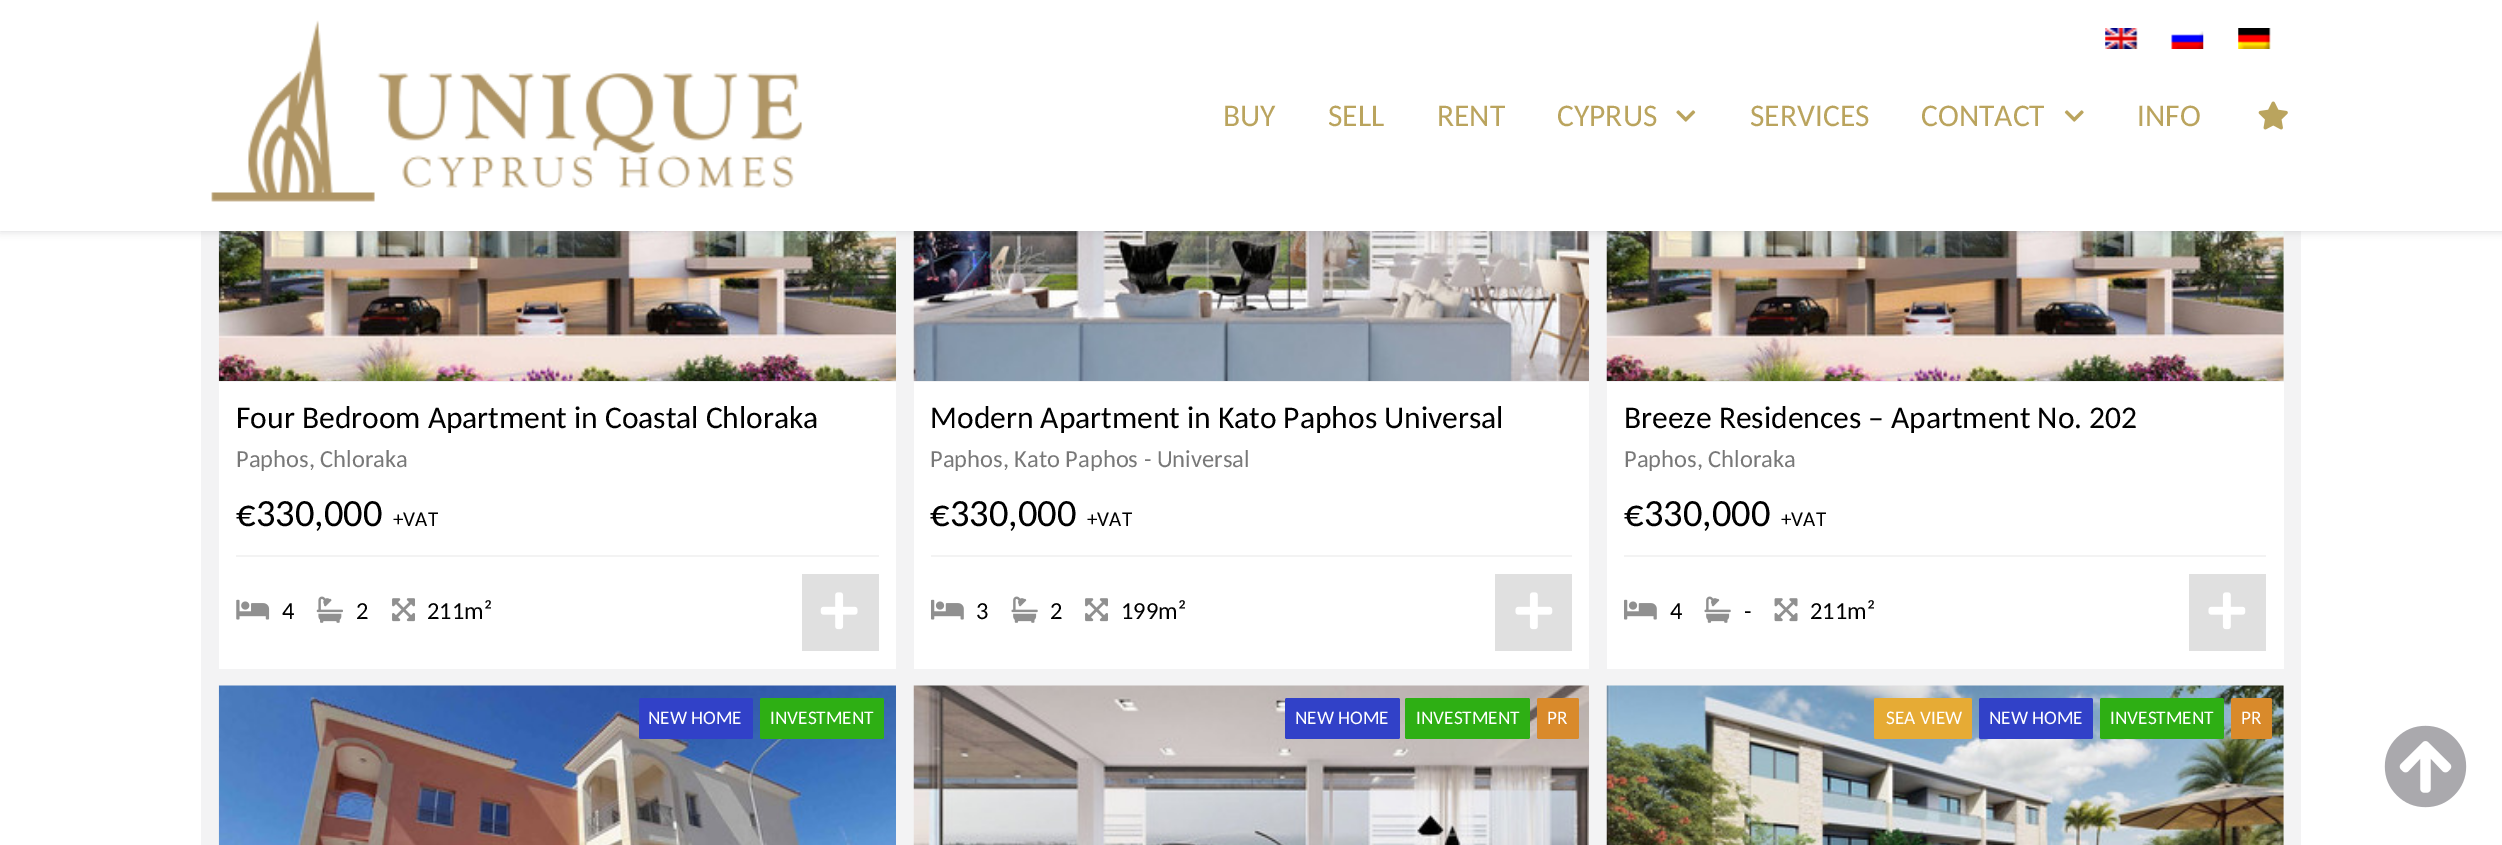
%!PS-Adobe-3.0
%%BoundingBox: 0 0 2502 845
%%LanguageLevel: 3
%%Pages: 1
%%EndComments
%%BeginProlog
/setalpha { dup .setfillconstantalpha .setstrokeconstantalpha } def
/rrect { 5 dict begin { /r /h /w /y /x } { exch def } forall
  x r add y moveto x w add y 2 copy h add r arct x w add y h add x 1 index r arct
  x y h add x y r arct x y 2 copy exch w add exch r arct closepath end } def
/softshadow { 12 dict begin { /a /b /q /h /w /y /x } { exch def } forall gsave /was 0 def
  9 -2 -9 { dup b mul 4 div /e exch def 1 sub .425 mul 2.718 exch exp 1 add a .99 .min exch div /now exch def
    1 1 now sub 1 was sub div sub setalpha /was now def
    w h .min e 2 mul add 0 gt { x e sub y e sub w e 2 mul add h e 2 mul add
      q e add b .6 mul add w h .min 2 div e add .min 0 .max rrect fill } if } for grestore end } def
/drawimage { 5 dict begin { /h /w /y /x /name } { exch def } forall
  gsave x y translate w h scale
  w h 8 [w 0 0 h 0 0] name (r) file false 3 colorimage grestore end } def
%%EndProlog
%%BeginSetup
<< /PageSize [2502 845] /PageUsesTransparency true >> setpagedevice
%%EndSetup
%%Page: 1 1
0 .pushpdf14devicefilter
0 845 translate 1 -1 scale
4 setmiterlimit
1 setgray
0 0 2502 845 rectfill
0.953 0.953 0.957 setrgbcolor
201 231 2100 614 rectfill
(images/8.raw) 218 231 678 150 drawimage
(images/13.raw) 913 231 676 150 drawimage
(images/17.raw) 1606 231 678 150 drawimage
0.667 0.663 0.678 setrgbcolor
0 0 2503 231 0 4.5 0.46 softshadow
1 setgray
0 0 2502 231 rectfill
(images/1.raw) 211 20 592 182 drawimage
(images/2.raw) 2105 28 33 21 drawimage
(images/3.raw) 2171 31 33 18 drawimage
(images/4.raw) 2238 28 33 21 drawimage
(images/5.raw) 1676 110 20 12 drawimage
(images/6.raw) 2064 110 20 12 drawimage
(images/7.raw) 2258 101 30 29 drawimage
219 382 677 287 rectfill
0.953 setgray
236 555 643 2 rectfill
(images/9.raw) 236 599 34 21 drawimage
(images/10.raw) 316 596 27 27 drawimage
(images/11.raw) 392 598 23 24 drawimage
0.878 setgray
802 574 77 77 rectfill
(images/12.raw) 820 592 38 38 drawimage
1 setgray
914 382 675 287 rectfill
0.953 setgray
931 555 641 2 rectfill
(images/14.raw) 931 599 33 21 drawimage
(images/15.raw) 1011 596 27 27 drawimage
(images/11.raw) 1085 598 23 24 drawimage
0.878 setgray
1495 574 77 77 rectfill
(images/16.raw) 1515 592 38 38 drawimage
1 setgray
1607 382 677 287 rectfill
0.953 setgray
1624 555 642 2 rectfill
(images/14.raw) 1624 599 33 21 drawimage
(images/15.raw) 1704 596 27 27 drawimage
(images/18.raw) 1774 598 24 24 drawimage
0.878 setgray
2189 574 77 77 rectfill
(images/16.raw) 2208 592 38 38 drawimage
(images/19.raw) 218 685 678 160 drawimage
0.192 0.255 0.784 setrgbcolor
639 698 114 41 2 rrect fill
0.18 0.686 0.078 setrgbcolor
760 698 124 41 2 rrect fill
(images/20.raw) 913 685 676 160 drawimage
0.192 0.255 0.784 setrgbcolor
1285 698 115 41 2 rrect fill
0.18 0.686 0.078 setrgbcolor
1405 698 125 41 2 rrect fill
0.851 0.541 0.169 setrgbcolor
1537 698 42 41 2 rrect fill
(images/21.raw) 1606 685 678 160 drawimage
0.902 0.671 0.208 setrgbcolor
1874 698 98 41 2 rrect fill
0.192 0.255 0.784 setrgbcolor
1979 698 114 41 2 rrect fill
0.18 0.686 0.078 setrgbcolor
2100 698 124 41 2 rrect fill
0.851 0.541 0.169 setrgbcolor
2231 698 41 41 2 rrect fill
(images/22.raw) 2384 725 83 83 drawimage
/Carlito-Regular [31.5 0 0 -31.5 0 0] selectfont
0.729 0.643 0.369 setrgbcolor
1223 126 moveto (BUY) show
1328 126 moveto (SELL) show
1437 126 moveto (RENT) show
1557 126 moveto (CYPRUS) show
1750 126 moveto (SERVICES) show
1921 126 moveto (CONTACT) show
2137 126 moveto (INFO) show
0 setgray
236 428 moveto (Four Bedroom Apartment in Coastal Chloraka) show
/Carlito-Regular [24.5 0 0 -24.5 0 0] selectfont
0.471 setgray
236 467 moveto (Paphos, Chloraka) show
/Carlito-Regular [38.5 0 0 -38.5 0 0] selectfont
0 setgray
236 526 moveto (€330,000) show
/Carlito-Regular [21 0 0 -21 0 0] selectfont
393 526 moveto (+VAT) show
/Carlito-Regular [24.5 0 0 -24.5 0 0] selectfont
282 619 moveto (4) show
356 619 moveto (2) show
427 619 moveto (211m²) show
/Carlito-Regular [31.5 0 0 -31.5 0 0] selectfont
930 428 moveto (Modern Apartment in Kato Paphos Universal) show
/Carlito-Regular [24.5 0 0 -24.5 0 0] selectfont
0.471 setgray
930 467 moveto (Paphos, Kato Paphos - Universal) show
/Carlito-Regular [38.5 0 0 -38.5 0 0] selectfont
0 setgray
930 526 moveto (€330,000) show
/Carlito-Regular [21 0 0 -21 0 0] selectfont
1087 526 moveto (+VAT) show
/Carlito-Regular [24.5 0 0 -24.5 0 0] selectfont
976 619 moveto (3) show
1050 619 moveto (2) show
1121 619 moveto (199m²) show
/Carlito-Regular [31.5 0 0 -31.5 0 0] selectfont
1624 428 moveto (Breeze Residences – Apartment No. 202) show
/Carlito-Regular [24.5 0 0 -24.5 0 0] selectfont
0.471 setgray
1624 467 moveto (Paphos, Chloraka) show
/Carlito-Regular [38.5 0 0 -38.5 0 0] selectfont
0 setgray
1624 526 moveto (€330,000) show
/Carlito-Regular [21 0 0 -21 0 0] selectfont
1781 526 moveto (+VAT) show
/Carlito-Regular [24.5 0 0 -24.5 0 0] selectfont
1670 619 moveto (4) show
1744 619 moveto (-) show
1810 619 moveto (211m²) show
/Carlito-Regular [19.25 0 0 -19.25 0 0] selectfont
1 setgray
648 724 moveto (NEW HOME) show
770 724 moveto (INVESTMENT) show
1295 724 moveto (NEW HOME) show
1416 724 moveto (INVESTMENT) show
1547 724 moveto (PR) show
1886 724 moveto (SEA VIEW) show
1989 724 moveto (NEW HOME) show
2110 724 moveto (INVESTMENT) show
2241 724 moveto (PR) show
.poppdf14devicefilter showpage
%%EOF
